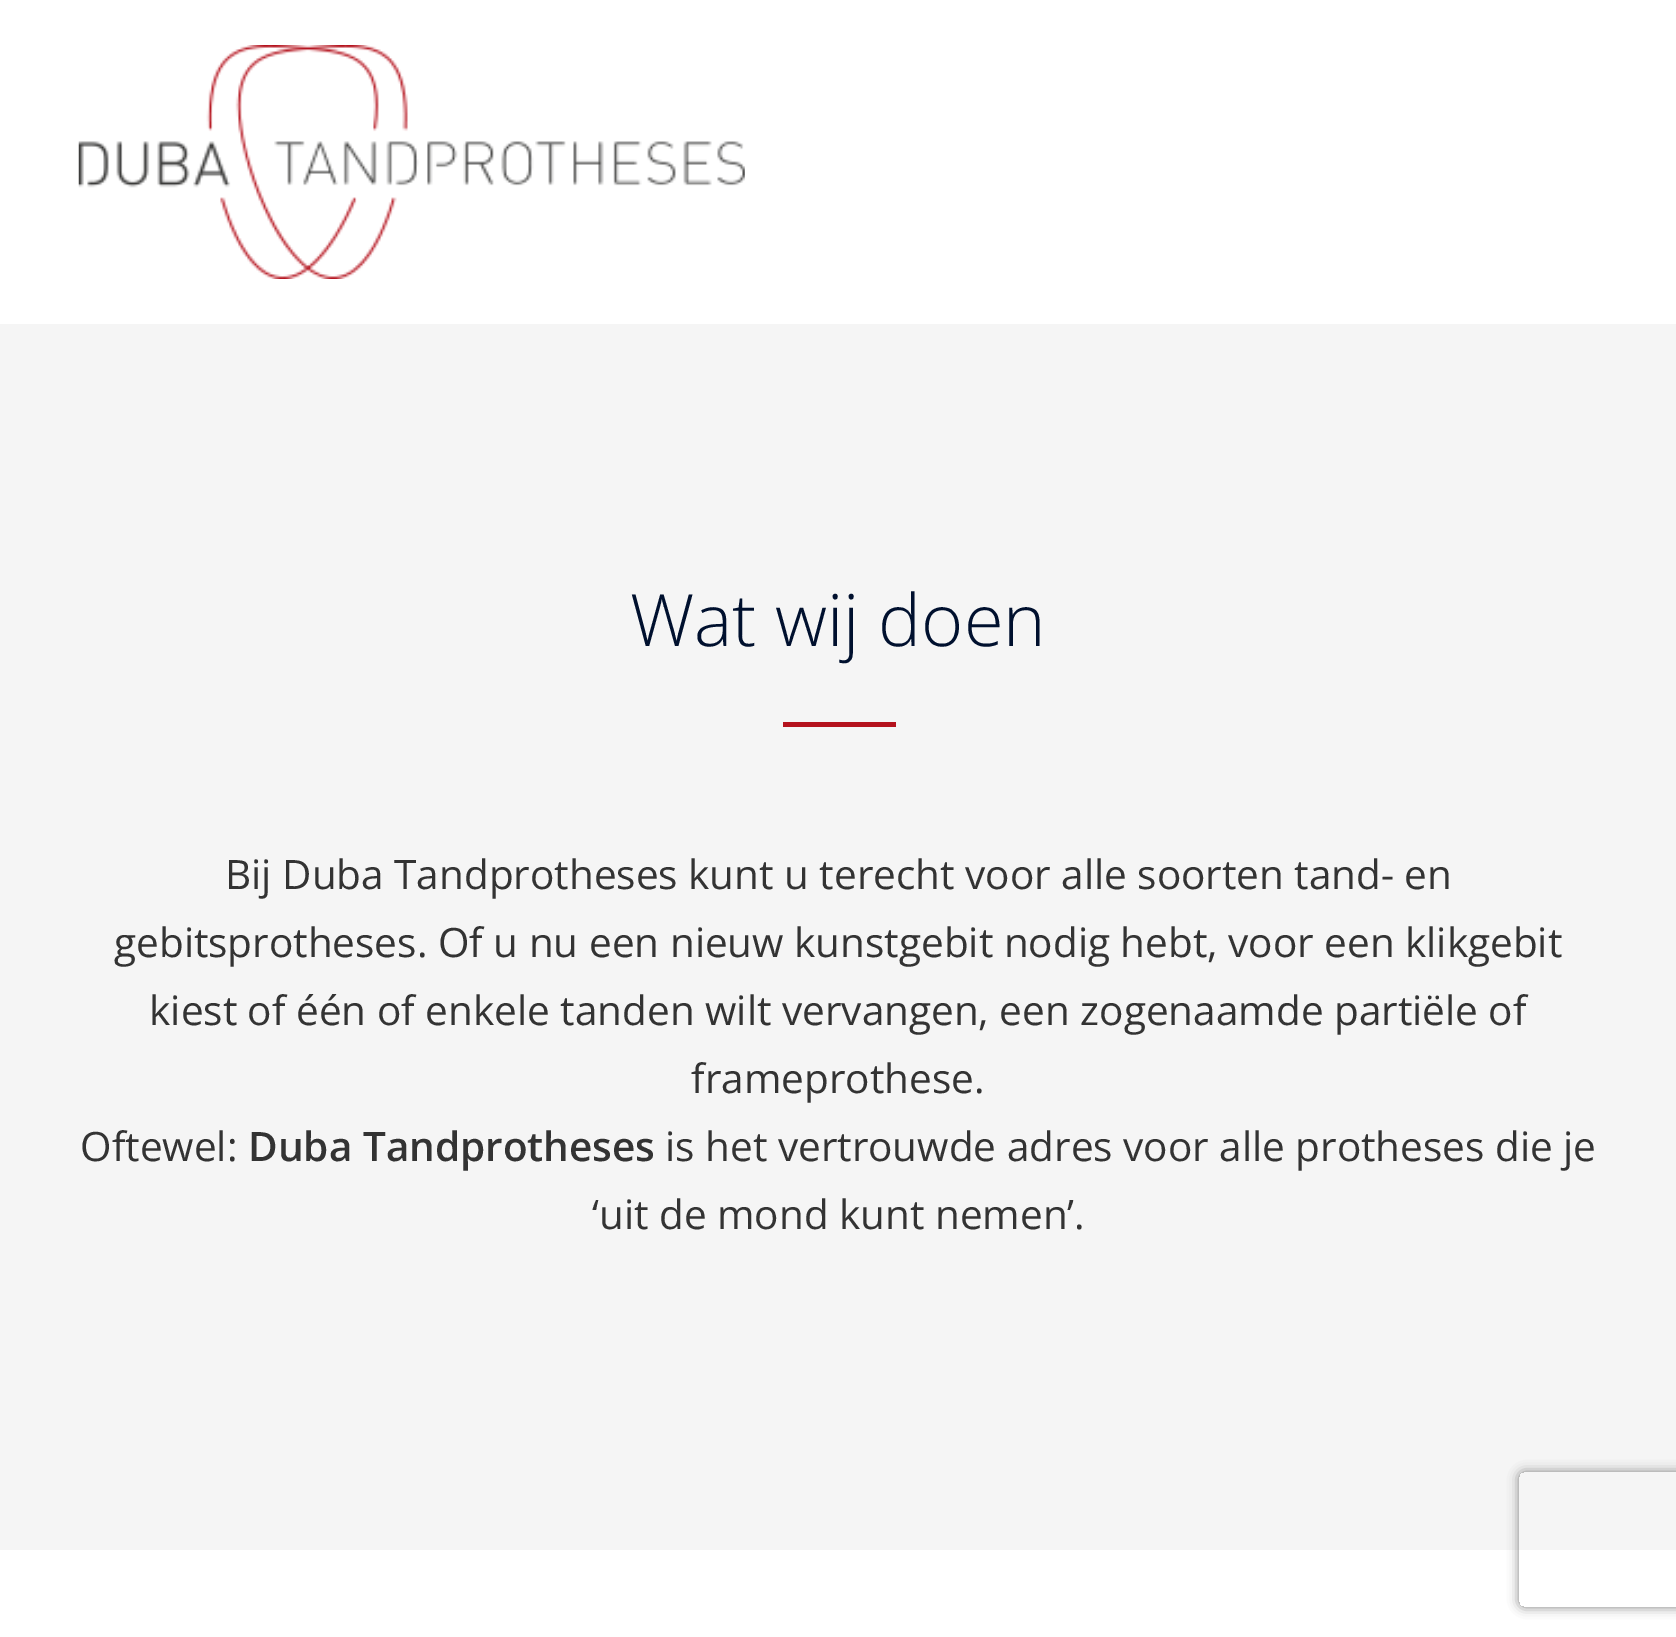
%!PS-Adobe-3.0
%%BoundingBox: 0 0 1676 1637
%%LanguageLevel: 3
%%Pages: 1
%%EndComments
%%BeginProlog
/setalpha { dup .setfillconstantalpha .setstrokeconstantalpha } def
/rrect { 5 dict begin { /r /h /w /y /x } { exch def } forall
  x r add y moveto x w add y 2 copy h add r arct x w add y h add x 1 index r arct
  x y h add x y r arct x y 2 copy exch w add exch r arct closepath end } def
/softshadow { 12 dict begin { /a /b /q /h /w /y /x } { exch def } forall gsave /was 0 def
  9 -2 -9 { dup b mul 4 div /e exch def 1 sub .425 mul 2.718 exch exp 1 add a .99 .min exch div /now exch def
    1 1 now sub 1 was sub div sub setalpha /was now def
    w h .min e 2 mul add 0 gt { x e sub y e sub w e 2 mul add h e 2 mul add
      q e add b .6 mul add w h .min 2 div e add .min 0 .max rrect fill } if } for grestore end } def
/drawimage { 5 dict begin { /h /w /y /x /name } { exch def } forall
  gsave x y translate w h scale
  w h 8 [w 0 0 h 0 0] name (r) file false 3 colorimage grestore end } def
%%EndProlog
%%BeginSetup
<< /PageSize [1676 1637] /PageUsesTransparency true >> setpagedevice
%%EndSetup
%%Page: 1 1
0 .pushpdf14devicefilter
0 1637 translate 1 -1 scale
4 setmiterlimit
1 setgray
0 0 1676 1637 rectfill
(images/1.raw) 78 45 667 234 drawimage
0.961 setgray
0 324 1676 1226 rectfill
0.706 0.071 0.114 setrgbcolor
783 722 113 5 rectfill
gsave
newpath 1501 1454 moveto 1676 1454 lineto 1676 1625 lineto 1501 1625 lineto closepath 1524 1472 moveto 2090 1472 lineto 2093 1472 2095 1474 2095 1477 curveto 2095 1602 lineto 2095 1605 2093 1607 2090 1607 curveto 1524 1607 lineto 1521 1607 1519 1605 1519 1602 curveto 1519 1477 lineto 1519 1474 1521 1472 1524 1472 curveto closepath eoclip newpath
0.502 setgray
1519 1472 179 135 5 5.5 1 softshadow
grestore
/OpenSans-Light [72 0 0 -72 0 0] selectfont
0 0.063 0.18 setrgbcolor
630 646 moveto (Wat wij doen) show
/OpenSans-Regular [40.5 0 0 -40.5 0 0] selectfont
0.2 setgray
225 889 moveto (Bij Duba Tandprotheses kunt u terecht voor alle soorten tand- en) show
114 957 moveto (gebitsprotheses. Of u nu een nieuw kunstgebit nodig hebt, voor een klikgebit) show
149 1025 moveto (kiest of één of enkele tanden wilt vervangen, een zogenaamde partiële of) show
691 1093 moveto (frameprothese.) show
80 1161 moveto (Oftewel:) show
/OpenSans-SemiBold [40.5 0 0 -40.5 0 0] selectfont
248 1161 moveto (Duba Tandprotheses) show
/OpenSans-Regular [40.5 0 0 -40.5 0 0] selectfont
665 1161 moveto (is het vertrouwde adres voor alle protheses die je) show
592 1229 moveto (‘uit de mond kunt nemen’.) show
.poppdf14devicefilter showpage
%%EOF
